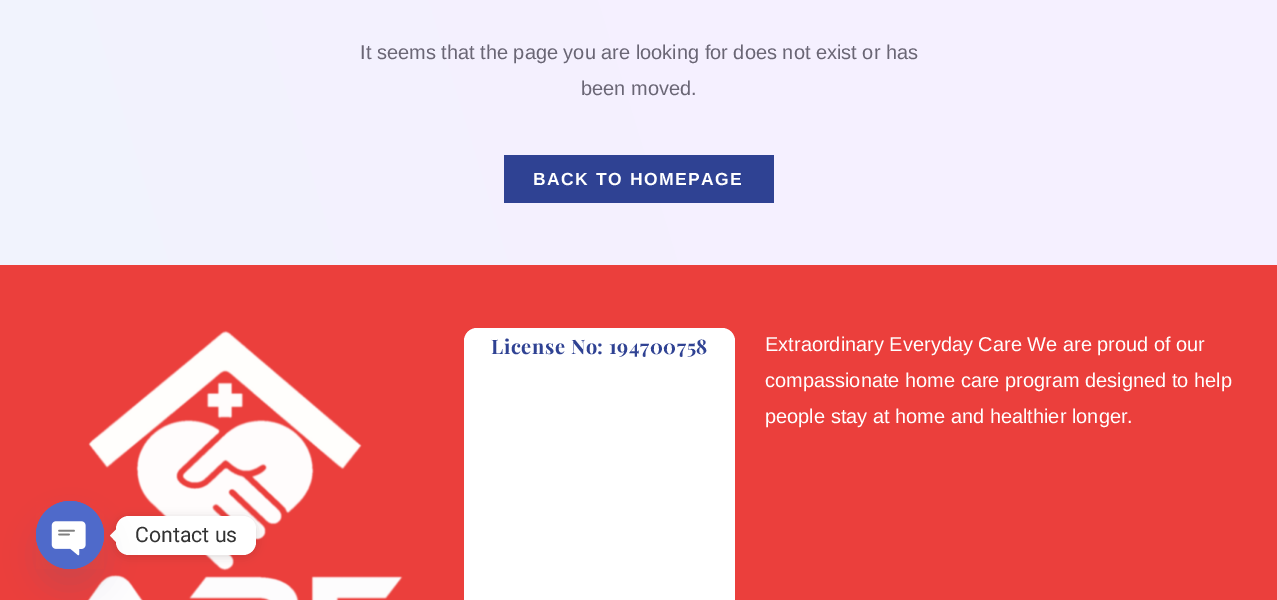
%!PS-Adobe-3.0
%%BoundingBox: 0 0 1277 600
%%LanguageLevel: 3
%%Pages: 1
%%EndComments
%%BeginProlog
/setalpha { dup .setfillconstantalpha .setstrokeconstantalpha } def
/rrect { 5 dict begin { /r /h /w /y /x } { exch def } forall
  x r add y moveto x w add y 2 copy h add r arct x w add y h add x 1 index r arct
  x y h add x y r arct x y 2 copy exch w add exch r arct closepath end } def
/softshadow { 12 dict begin { /a /b /q /h /w /y /x } { exch def } forall gsave /was 0 def
  9 -2 -9 { dup b mul 4 div /e exch def 1 sub .425 mul 2.718 exch exp 1 add a .99 .min exch div /now exch def
    1 1 now sub 1 was sub div sub setalpha /was now def
    w h .min e 2 mul add 0 gt { x e sub y e sub w e 2 mul add h e 2 mul add
      q e add b .6 mul add w h .min 2 div e add .min 0 .max rrect fill } if } for grestore end } def
/drawimage { 5 dict begin { /h /w /y /x /name } { exch def } forall
  gsave x y translate w h scale
  w h 8 [w 0 0 h 0 0] name (r) file false 3 colorimage grestore end } def
%%EndProlog
%%BeginSetup
<< /PageSize [1277 600] /PageUsesTransparency true >> setpagedevice
%%EndSetup
%%Page: 1 1
0 .pushpdf14devicefilter
0 600 translate 1 -1 scale
4 setmiterlimit
1 setgray
0 0 1277 600 rectfill
gsave newpath 0 0 moveto 1277 0 lineto 1277 265 lineto 0 265 lineto closepath clip newpath
<< /ShadingType 2 /ColorSpace /DeviceRGB /Coords [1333 -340 -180 122] /Extend [true true] /Function << /FunctionType 3 /Domain [0 1] /Functions [<< /FunctionType 2 /Domain [0 1] /C0 [0.961 0.941 1] /C1 [0.961 0.941 1] /N 1 >> << /FunctionType 2 /Domain [0 1] /C0 [0.961 0.941 1] /C1 [0.941 0.961 0.992] /N 1 >>] /Bounds [0.48] /Encode [0 1 0 1] >> >> shfill grestore
0.184 0.259 0.576 setrgbcolor
504 155 270 48 rectfill
0.922 0.247 0.235 setrgbcolor
0 265 1277 335 rectfill
(images/1.raw) 87 330 316 270 drawimage
1 setgray
464 328 271 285 13 rrect fill
0 setgray
116 518 140 38 13 5 0.15 softshadow
1 setgray
116 516 140 39 13 rrect fill
newpath 116 529.5 moveto 116 542 lineto 110 535.5 lineto closepath fill
0.286 0.408 0.494 setrgbcolor
36 521 68 68 34 15 0.16 softshadow
(images/2.raw) 36 501 68 68 drawimage
/LiberationSans-Regular [20 0 0 -20 0 0] selectfont
0.416 0.4 0.459 setrgbcolor
360 59 moveto (It seems that the page you are looking for does not exist or has) show
581 95 moveto (been moved.) show
/LiberationSans-Bold [17.5 0 0 -17.5 0 0] selectfont
1 setgray
533 185 moveto 1.5 0 (BACK TO HOMEPAGE) ashow
/PlayfairDisplay-Bold [20 0 0 -20 0 0] selectfont
0.184 0.259 0.576 setrgbcolor
491 354 moveto 0.6 0 (License No: 194700758) ashow
/LiberationSans-Regular [20 0 0 -20 0 0] selectfont
1 setgray
765 351 moveto (Extraordinary Everyday Care We are proud of our) show
765 387 moveto (compassionate home care program designed to help) show
765 423 moveto (people stay at home and healthier longer.) show
/Roboto-Regular [21.25 0 0 -21.25 0 0] selectfont
0.2 setgray
135 542 moveto (Contact us) show
.poppdf14devicefilter showpage
%%EOF
